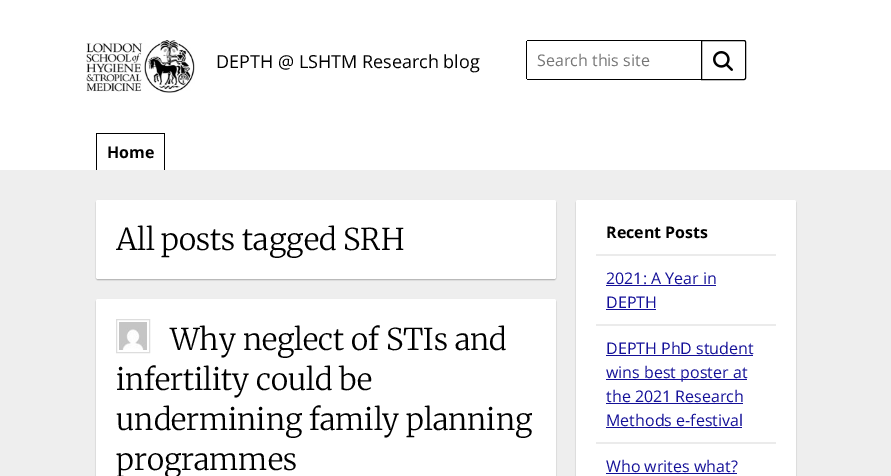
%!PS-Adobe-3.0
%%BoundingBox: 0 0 891 476
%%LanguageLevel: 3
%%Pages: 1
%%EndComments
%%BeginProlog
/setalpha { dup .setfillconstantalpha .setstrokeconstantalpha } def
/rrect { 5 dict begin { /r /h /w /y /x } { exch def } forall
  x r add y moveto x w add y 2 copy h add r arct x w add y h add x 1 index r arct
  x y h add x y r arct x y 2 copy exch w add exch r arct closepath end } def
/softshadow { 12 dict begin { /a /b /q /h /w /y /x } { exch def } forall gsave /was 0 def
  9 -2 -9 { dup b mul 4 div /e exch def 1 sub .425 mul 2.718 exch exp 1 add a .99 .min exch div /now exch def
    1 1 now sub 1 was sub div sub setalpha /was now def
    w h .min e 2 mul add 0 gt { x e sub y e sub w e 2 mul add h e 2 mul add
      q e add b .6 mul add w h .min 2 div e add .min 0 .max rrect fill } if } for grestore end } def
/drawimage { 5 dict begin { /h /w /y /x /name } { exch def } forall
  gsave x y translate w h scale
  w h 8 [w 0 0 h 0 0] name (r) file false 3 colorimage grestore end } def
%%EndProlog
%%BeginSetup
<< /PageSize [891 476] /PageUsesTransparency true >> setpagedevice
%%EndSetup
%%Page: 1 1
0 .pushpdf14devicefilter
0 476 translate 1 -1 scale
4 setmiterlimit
0.933 setgray
0 0 891 476 rectfill
1 setgray
0 0 891 170 rectfill
(images/1.raw) 86 40 109 53 drawimage
0 setgray
527 40 174 1 rectfill
527 79 174 1 rectfill
526 41 1 38 rectfill
newpath 701.5 40.5 moveto 744 40.5 lineto 745 40.5 745.5 41 745.5 42 curveto 745.5 78 lineto 745.5 79 745 79.5 744 79.5 curveto 701.5 79.5 lineto closepath stroke
(images/2.raw) 713 51 20 20 drawimage
96 133 69 1 rectfill
164 133 1 37 rectfill
96 133 1 37 rectfill
96 201 460 79 2 0.5 0.25 softshadow
1 setgray
96 200 460 79 2 rrect fill
0 setgray
96 300 460 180 2 0.5 0.25 softshadow
1 setgray
96 299 460 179 2 rrect fill
0.867 setgray
116.5 319.5 33 33 rectstroke
(images/3.raw) 119 322 28 28 drawimage
0 setgray
576 201 220 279 2 0.5 0.25 softshadow
1 setgray
576 200 220 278 2 rrect fill
0.922 setgray
596 254 180 2 rectfill
596 324 180 2 rectfill
0.078 0.063 0.596 setrgbcolor
606 285 110 1 rectfill
606 309 50 1 rectfill
0.922 setgray
596 442 180 2 rectfill
0.078 0.063 0.596 setrgbcolor
606 355 147 1 rectfill
606 379 141 1 rectfill
606 403 137 1 rectfill
606 427 136 1 rectfill
606 473 131 1 rectfill
/OpenSans-Regular [18 0 0 -18 0 0] selectfont
0 setgray
216 68 moveto (DEPTH @ LSHTM Research blog) show
/OpenSans-Regular [16 0 0 -16 0 0] selectfont
0.459 setgray
537 66 moveto (Search this site) show
/OpenSans-Bold [16 0 0 -16 0 0] selectfont
0 setgray
107 158 moveto (Home) show
/Merriweather-Light [30 0 0 -30 0 0] selectfont
116 250 moveto (All posts tagged SRH) show
170 350 moveto (Why neglect of STIs and) show
116 390 moveto (infertility could be) show
116 430 moveto (undermining family planning) show
116 470 moveto (programmes) show
/OpenSans-Bold [16 0 0 -16 0 0] selectfont
606 238 moveto (Recent Posts) show
/OpenSans-Regular [16 0 0 -16 0 0] selectfont
0.078 0.063 0.596 setrgbcolor
606 284 moveto (2021: A Year in) show
606 308 moveto (DEPTH) show
606 354 moveto (DEPTH PhD student) show
606 378 moveto (wins best poster at) show
606 402 moveto (the 2021 Research) show
606 426 moveto (Methods e-festival) show
606 472 moveto (Who writes what?) show
.poppdf14devicefilter showpage
%%EOF
